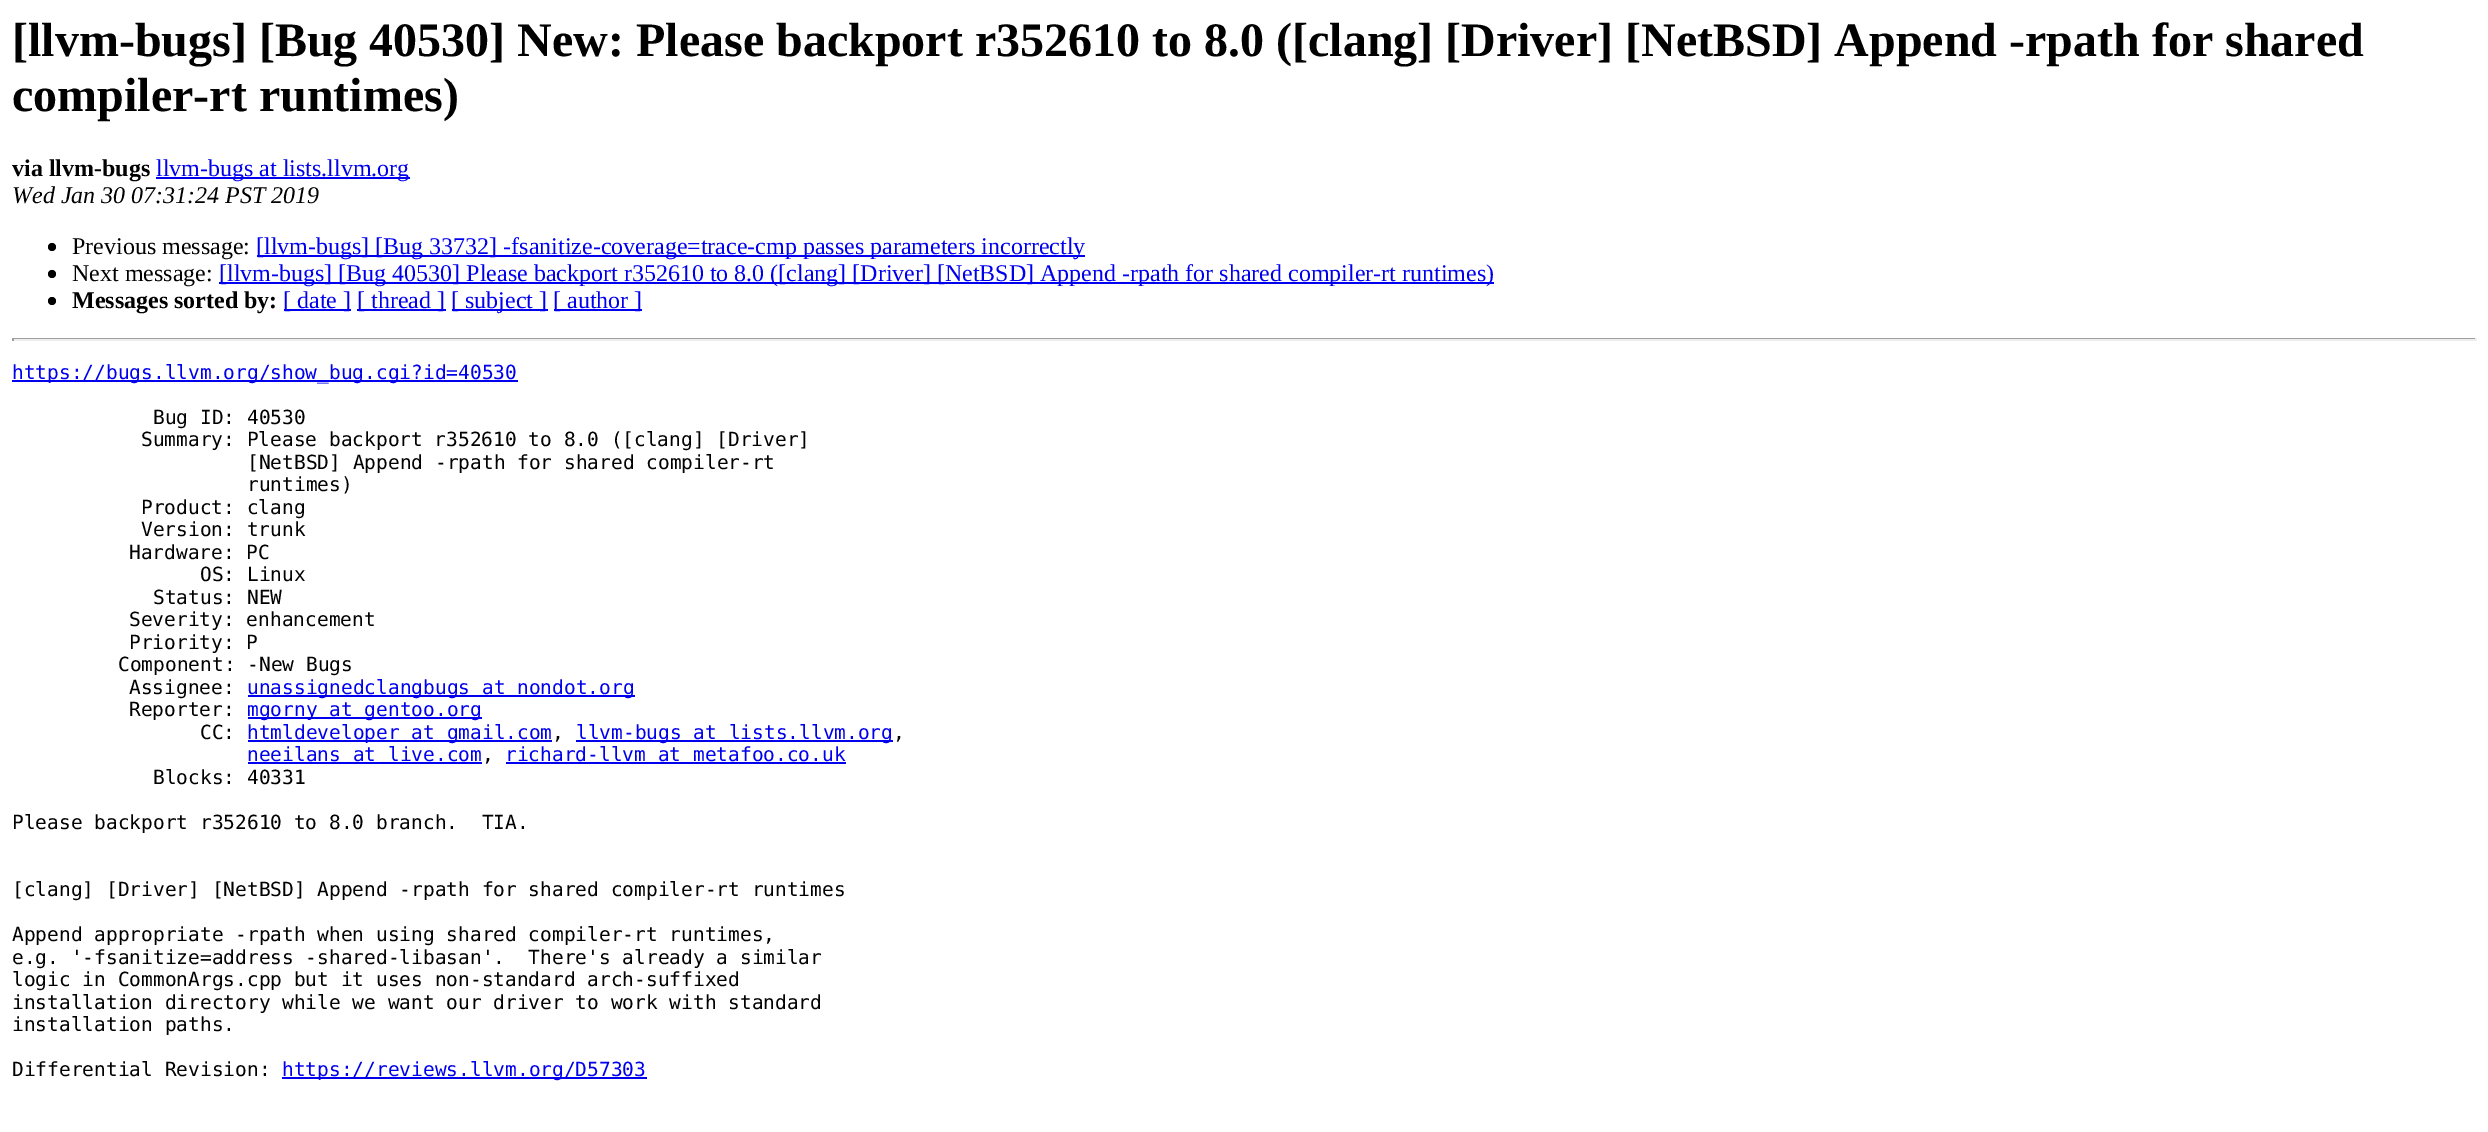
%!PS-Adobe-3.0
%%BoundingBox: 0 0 2488 1132
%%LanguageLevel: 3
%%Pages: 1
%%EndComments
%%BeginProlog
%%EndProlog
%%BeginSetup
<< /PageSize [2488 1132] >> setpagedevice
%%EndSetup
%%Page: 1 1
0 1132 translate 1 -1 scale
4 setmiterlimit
1 setgray
0 0 2488 1132 rectfill
0 0 0.933 setrgbcolor
156 177 254 2 rectfill
0 setgray
newpath 52 247 4 0 360 arc closepath fill
0 0 0.933 setrgbcolor
257 255 828 2 rectfill
0 setgray
newpath 52 274 4 0 360 arc closepath fill
0 0 0.933 setrgbcolor
219 282 1275 2 rectfill
0 setgray
newpath 52 301 4 0 360 arc closepath fill
0 0 0.933 setrgbcolor
284 309 67 2 rectfill
357 309 89 2 rectfill
452 309 96 2 rectfill
554 309 88 2 rectfill
0.624 setgray
12 338 2465 1 rectfill
0.933 setgray
2475 338 2 3 rectfill
12 339 2465 2 rectfill
0.624 setgray
12 338 2 3 rectfill
0 0 0.933 setrgbcolor
12 380 506 2 rectfill
248 695 387 2 rectfill
248 717 234 2 rectfill
248 740 304 2 rectfill
576 740 317 2 rectfill
248 762 234 2 rectfill
506 762 340 2 rectfill
282 1077 365 2 rectfill
/LiberationSerif-Bold [48 0 0 -48 0 0] selectfont
0 setgray
12 56 moveto ([llvm-bugs] [Bug 40530] New: Please backport r352610 to 8.0 \([clang] [Driver] [NetBSD] Append -rpath for shared) show
12 111 moveto (compiler-rt runtimes\)) show
/LiberationSerif-Bold [24 0 0 -24 0 0] selectfont
12 176 moveto (via llvm-bugs) show
/LiberationSerif-Regular [24 0 0 -24 0 0] selectfont
0 0 0.933 setrgbcolor
156 176 moveto (llvm-bugs at lists.llvm.org) show
/LiberationSerif-Italic [24 0 0 -24 0 0] selectfont
0 setgray
12 203 moveto (Wed Jan 30 07:31:24 PST 2019) show
/LiberationSerif-Regular [24 0 0 -24 0 0] selectfont
72 254 moveto (Previous message:) show
0 0 0.933 setrgbcolor
256 254 moveto ([llvm-bugs] [Bug 33732] -fsanitize-coverage=trace-cmp passes parameters incorrectly) show
0 setgray
72 281 moveto (Next message:) show
0 0 0.933 setrgbcolor
219 281 moveto ([llvm-bugs] [Bug 40530] Please backport r352610 to 8.0 \([clang] [Driver] [NetBSD] Append -rpath for shared compiler-rt runtimes\)) show
/LiberationSerif-Bold [24 0 0 -24 0 0] selectfont
0 setgray
72 308 moveto (Messages sorted by:) show
/LiberationSerif-Regular [24 0 0 -24 0 0] selectfont
0 0 0.933 setrgbcolor
283 308 moveto ([ date ]) show
357 308 moveto ([ thread ]) show
451 308 moveto ([ subject ]) show
553 308 moveto ([ author ]) show
/DejaVuSansMono-Regular [19.5 0 0 -19.5 0 0] selectfont
12 379 moveto (https://bugs.llvm.org/show_bug.cgi?id=40530) show
0 setgray
153 424 moveto (Bug ID: 40530) show
141 446 moveto (Summary: Please backport r352610 to 8.0 \([clang] [Driver]) show
247 469 moveto ([NetBSD] Append -rpath for shared compiler-rt) show
247 491 moveto (runtimes\)) show
141 514 moveto (Product: clang) show
141 536 moveto (Version: trunk) show
129 559 moveto (Hardware: PC) show
200 581 moveto (OS: Linux) show
153 604 moveto (Status: NEW) show
129 626 moveto (Severity: enhancement) show
129 649 moveto (Priority: P) show
118 671 moveto (Component: -New Bugs) show
129 694 moveto (Assignee:) show
0 0 0.933 setrgbcolor
247 694 moveto (unassignedclangbugs at nondot.org) show
0 setgray
129 716 moveto (Reporter:) show
0 0 0.933 setrgbcolor
247 716 moveto (mgorny at gentoo.org) show
0 setgray
200 739 moveto (CC:) show
0 0 0.933 setrgbcolor
247 739 moveto (htmldeveloper at gmail.com) show
0 setgray
552 739 moveto (,) show
0 0 0.933 setrgbcolor
576 739 moveto (llvm-bugs at lists.llvm.org) show
0 setgray
893 739 moveto (,) show
0 0 0.933 setrgbcolor
247 761 moveto (neeilans at live.com) show
0 setgray
482 761 moveto (,) show
0 0 0.933 setrgbcolor
505 761 moveto (richard-llvm at metafoo.co.uk) show
0 setgray
153 784 moveto (Blocks: 40331) show
12 829 moveto (Please backport r352610 to 8.0 branch.  TIA.) show
12 896 moveto ([clang] [Driver] [NetBSD] Append -rpath for shared compiler-rt runtimes) show
12 941 moveto (Append appropriate -rpath when using shared compiler-rt runtimes,) show
12 964 moveto (e.g. '-fsanitize=address -shared-libasan'.  There's already a similar) show
12 986 moveto (logic in CommonArgs.cpp but it uses non-standard arch-suffixed) show
12 1009 moveto (installation directory while we want our driver to work with standard) show
12 1031 moveto (installation paths.) show
12 1076 moveto (Differential Revision:) show
0 0 0.933 setrgbcolor
282 1076 moveto (https://reviews.llvm.org/D57303) show
showpage
%%EOF
